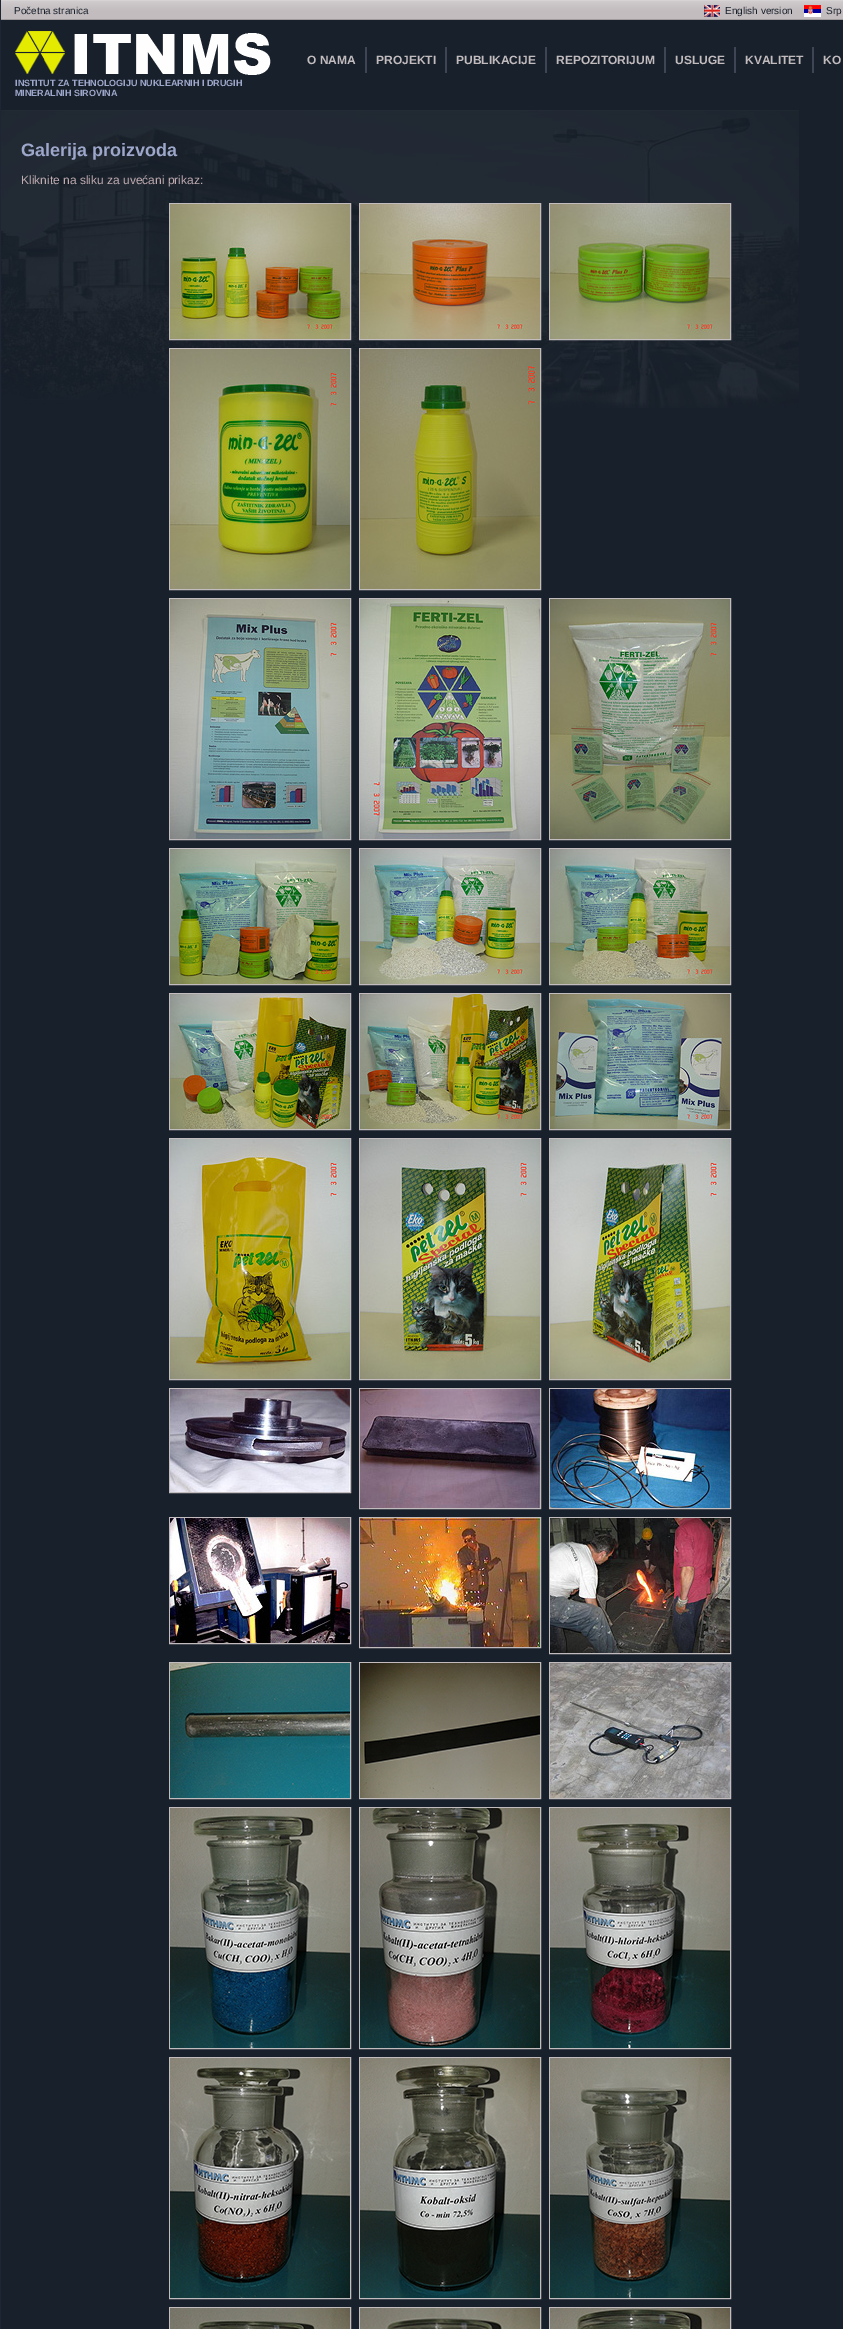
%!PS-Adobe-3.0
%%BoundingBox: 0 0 843 2329
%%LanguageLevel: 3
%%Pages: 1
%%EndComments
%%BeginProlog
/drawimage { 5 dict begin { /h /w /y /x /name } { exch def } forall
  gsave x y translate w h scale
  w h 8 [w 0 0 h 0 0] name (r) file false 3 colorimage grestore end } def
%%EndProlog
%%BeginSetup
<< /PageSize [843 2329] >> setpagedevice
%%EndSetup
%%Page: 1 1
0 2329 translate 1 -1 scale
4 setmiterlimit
0.094 0.125 0.169 setrgbcolor
0 0 843 2329 rectfill
0.122 0.145 0.208 setrgbcolor
0 0 1 2329 rectfill
(images/1.raw) 1 0 842 20 drawimage
(images/2.raw) 704 5 16 12 drawimage
(images/3.raw) 804 5 17 12 drawimage
(images/4.raw) 15 31 256 44 drawimage
0.247 0.271 0.333 setrgbcolor
365 47 2 26 rectfill
445 47 2 26 rectfill
545 47 2 26 rectfill
664 47 2 26 rectfill
734 47 2 26 rectfill
812 47 2 26 rectfill
(images/5.raw) 1 110 798 298 drawimage
0.761 0.737 0.745 setrgbcolor
169.5 203.5 181 136 rectstroke
(images/6.raw) 170 204 180 135 drawimage
359.5 203.5 181 136 rectstroke
(images/7.raw) 360 204 180 135 drawimage
549.5 203.5 181 136 rectstroke
(images/8.raw) 550 204 180 135 drawimage
169.5 348.5 181 241 rectstroke
(images/9.raw) 170 349 180 240 drawimage
359.5 348.5 181 241 rectstroke
(images/10.raw) 360 349 180 240 drawimage
169.5 598.5 181 241 rectstroke
(images/11.raw) 170 599 180 240 drawimage
359.5 598.5 181 241 rectstroke
(images/12.raw) 360 599 180 240 drawimage
549.5 598.5 181 241 rectstroke
(images/13.raw) 550 599 180 240 drawimage
169.5 848.5 181 136 rectstroke
(images/14.raw) 170 849 180 135 drawimage
359.5 848.5 181 136 rectstroke
(images/15.raw) 360 849 180 135 drawimage
549.5 848.5 181 136 rectstroke
(images/16.raw) 550 849 180 135 drawimage
169.5 993.5 181 136 rectstroke
(images/17.raw) 170 994 180 135 drawimage
359.5 993.5 181 136 rectstroke
(images/18.raw) 360 994 180 135 drawimage
549.5 993.5 181 136 rectstroke
(images/19.raw) 550 994 180 135 drawimage
169.5 1138.5 181 241 rectstroke
(images/20.raw) 170 1139 180 240 drawimage
359.5 1138.5 181 241 rectstroke
(images/21.raw) 360 1139 180 240 drawimage
549.5 1138.5 181 241 rectstroke
(images/22.raw) 550 1139 180 240 drawimage
169.5 1388.5 181 104 rectstroke
(images/23.raw) 170 1389 180 103 drawimage
359.5 1388.5 181 120 rectstroke
(images/24.raw) 360 1389 180 119 drawimage
549.5 1388.5 181 120 rectstroke
(images/25.raw) 550 1389 180 119 drawimage
169.5 1517.5 181 126 rectstroke
(images/26.raw) 170 1518 180 125 drawimage
359.5 1517.5 181 130 rectstroke
(images/27.raw) 360 1518 180 129 drawimage
549.5 1517.5 181 136 rectstroke
(images/28.raw) 550 1518 180 135 drawimage
169.5 1662.5 181 136 rectstroke
(images/29.raw) 170 1663 180 135 drawimage
359.5 1662.5 181 136 rectstroke
(images/30.raw) 360 1663 180 135 drawimage
549.5 1662.5 181 136 rectstroke
(images/31.raw) 550 1663 180 135 drawimage
169.5 1807.5 181 241 rectstroke
(images/32.raw) 170 1808 180 240 drawimage
359.5 1807.5 181 241 rectstroke
(images/33.raw) 360 1808 180 240 drawimage
549.5 1807.5 181 241 rectstroke
(images/34.raw) 550 1808 180 240 drawimage
169.5 2057.5 181 241 rectstroke
(images/35.raw) 170 2058 180 240 drawimage
359.5 2057.5 181 241 rectstroke
(images/36.raw) 360 2058 180 240 drawimage
549.5 2057.5 181 241 rectstroke
(images/37.raw) 550 2058 180 240 drawimage
169.5 2307.5 181 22 rectstroke
(images/38.raw) 170 2308 180 21 drawimage
359.5 2307.5 181 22 rectstroke
(images/39.raw) 360 2308 180 21 drawimage
549.5 2307.5 181 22 rectstroke
(images/40.raw) 550 2308 180 21 drawimage
/LiberationSans-Regular [10 0 0 -10 0 0] selectfont
0.094 0.125 0.169 setrgbcolor
14 14 moveto (Početna stranica) show
725 14 moveto (English version) show
826 14 moveto (Srp) show
/LiberationSans-Bold [12 0 0 -12 0 0] selectfont
0.761 0.737 0.745 setrgbcolor
307 64 moveto (O NAMA) show
376 64 moveto (PROJEKTI) show
456 64 moveto (PUBLIKACIJE) show
556 64 moveto (REPOZITORIJUM) show
675 64 moveto (USLUGE) show
745 64 moveto (KVALITET) show
823 64 moveto (KO) show
/LiberationSans-Bold [9 0 0 -9 0 0] selectfont
0.616 0.655 0.792 setrgbcolor
15 86 moveto (INSTITUT ZA TEHNOLOGIJU NUKLEARNIH I DRUGIH) show
15 96 moveto (MINERALNIH SIROVINA) show
/LiberationSans-Bold [18 0 0 -18 0 0] selectfont
21 156 moveto (Galerija proizvoda) show
/LiberationSans-Regular [12 0 0 -12 0 0] selectfont
0.753 0.675 0.694 setrgbcolor
21 184 moveto (Kliknite na sliku za uvećani prikaz:) show
showpage
%%EOF
